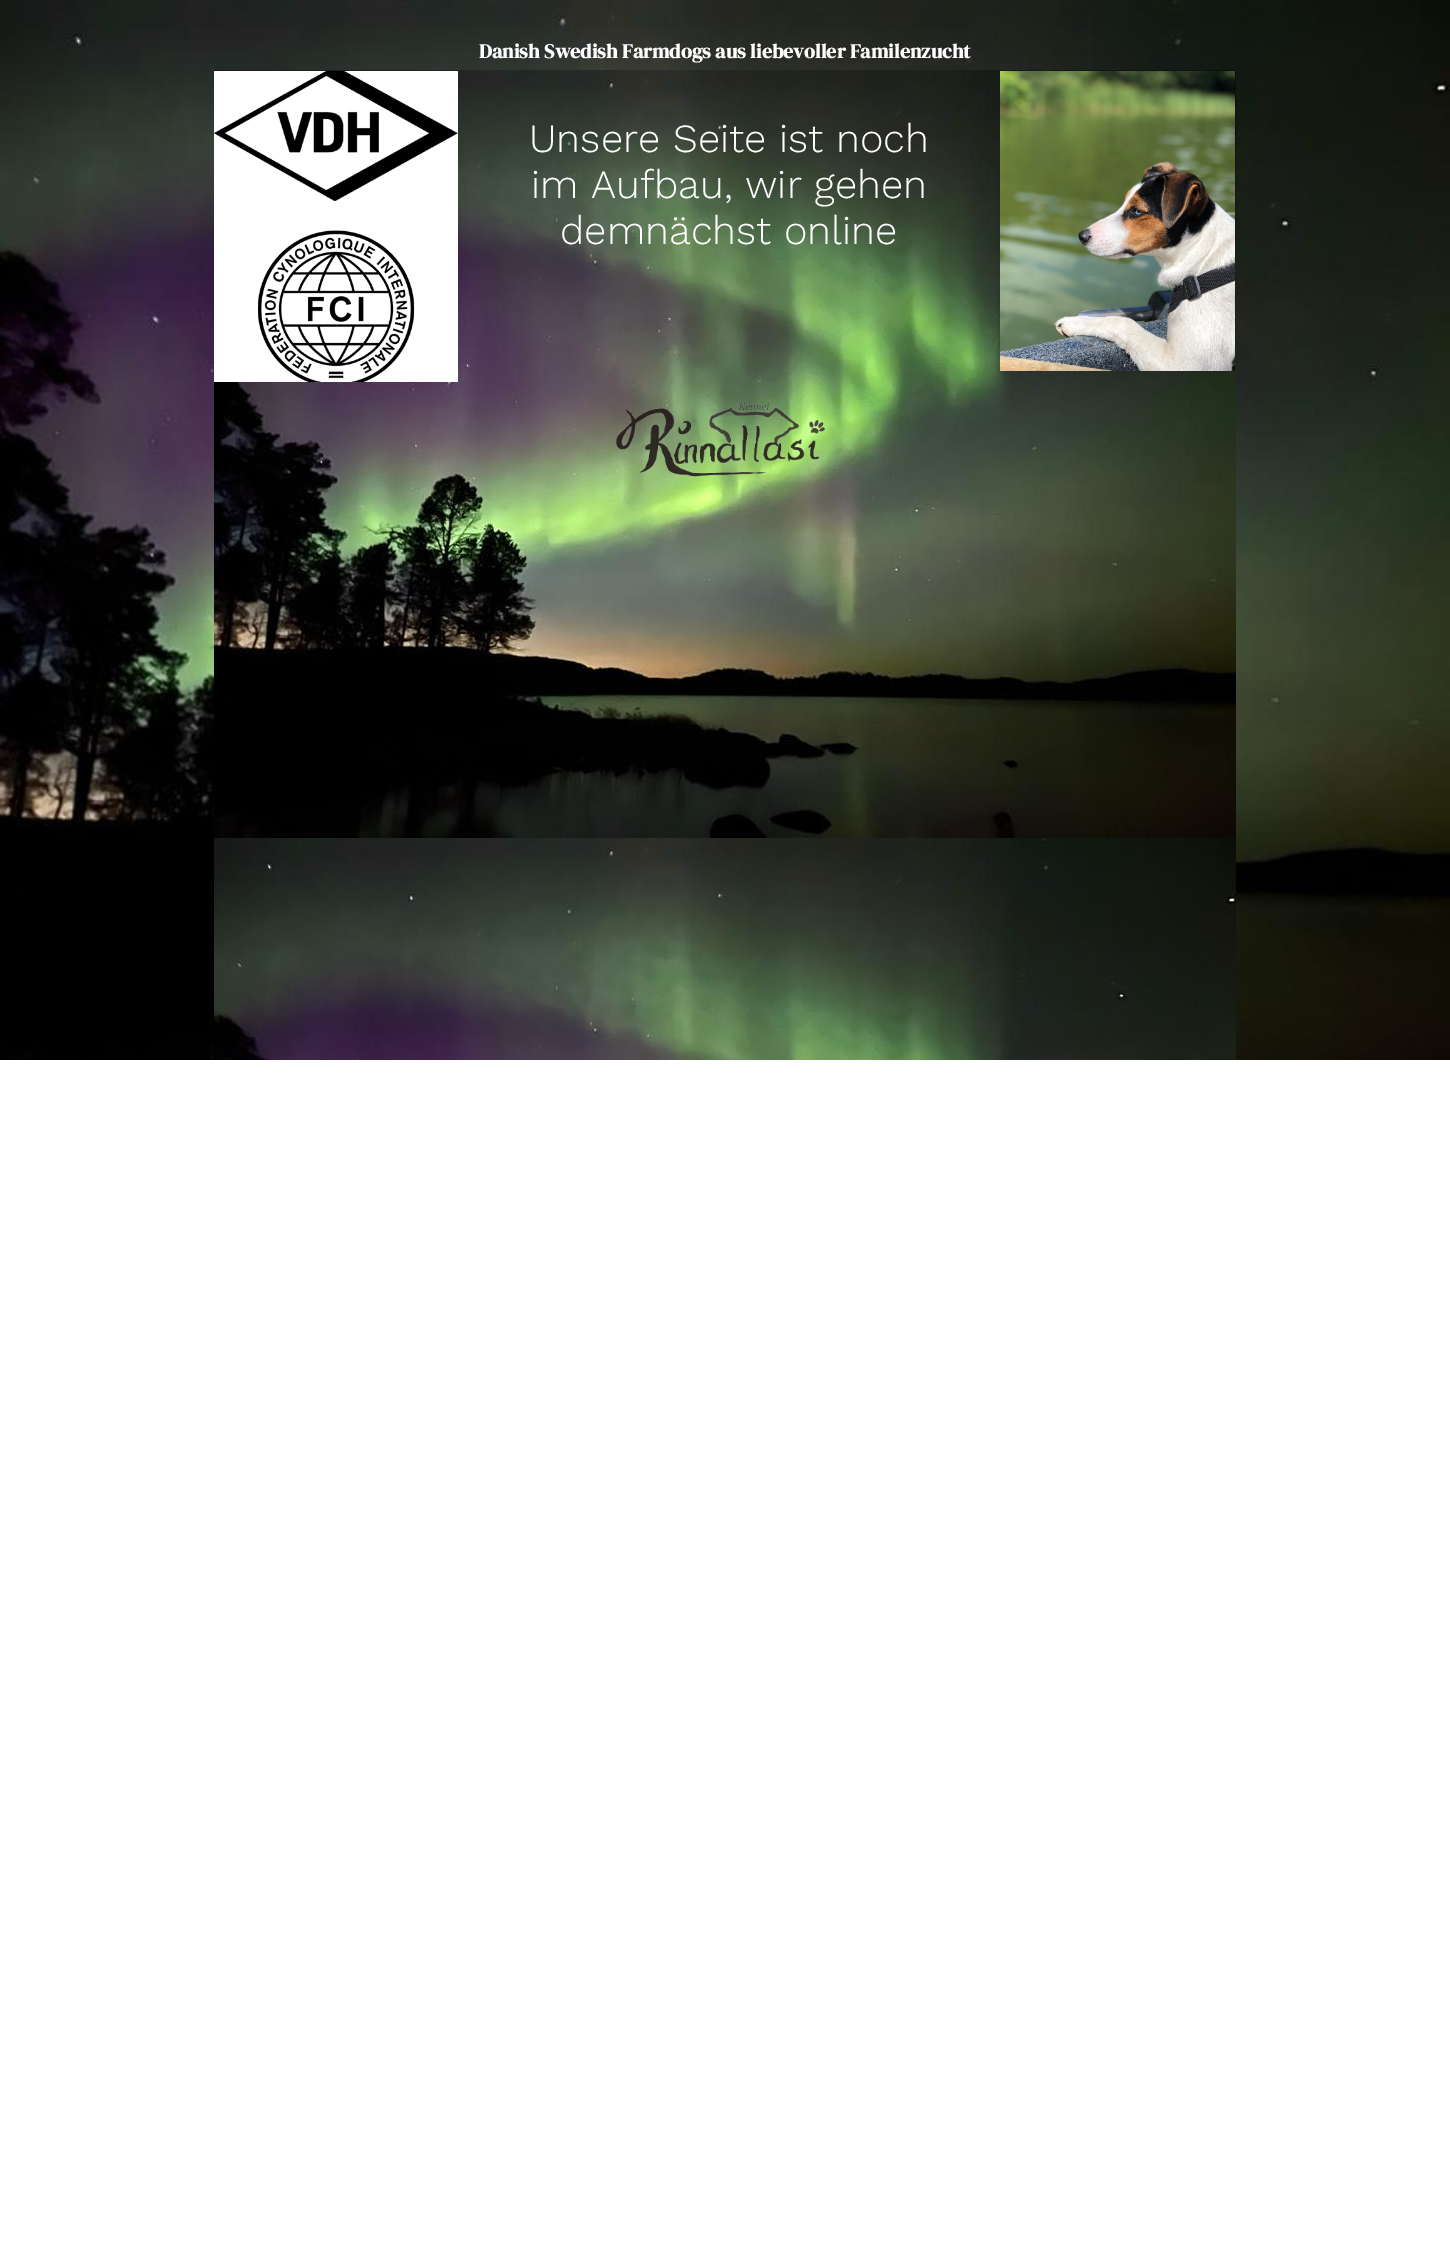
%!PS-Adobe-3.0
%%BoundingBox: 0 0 1450 2266
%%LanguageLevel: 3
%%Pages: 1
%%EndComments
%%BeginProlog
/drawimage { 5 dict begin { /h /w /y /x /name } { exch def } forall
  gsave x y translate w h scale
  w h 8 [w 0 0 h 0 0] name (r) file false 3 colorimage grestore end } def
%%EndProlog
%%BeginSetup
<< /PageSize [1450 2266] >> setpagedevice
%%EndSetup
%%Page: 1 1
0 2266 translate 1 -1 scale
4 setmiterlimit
1 setgray
0 0 1450 2266 rectfill
(images/1.raw) 0 0 1450 1060 drawimage
(images/2.raw) 214 70 1022 990 drawimage
(images/3.raw) 214 71 244 311 drawimage
(images/4.raw) 1000 71 235 300 drawimage
(images/5.raw) 616 403 209 81 drawimage
/DMSerifDisplay-Bold [20 0 0 -20 0 0] selectfont
479 58 moveto (Danish Swedish Farmdogs aus liebevoller Familenzucht) show
/WorkSans-Light [40 0 0 -40 0 0] selectfont
529 152 moveto (Unsere Seite ist noch) show
531 198 moveto (im Aufbau, wir gehen) show
560 244 moveto (demnächst online) show
showpage
%%EOF
